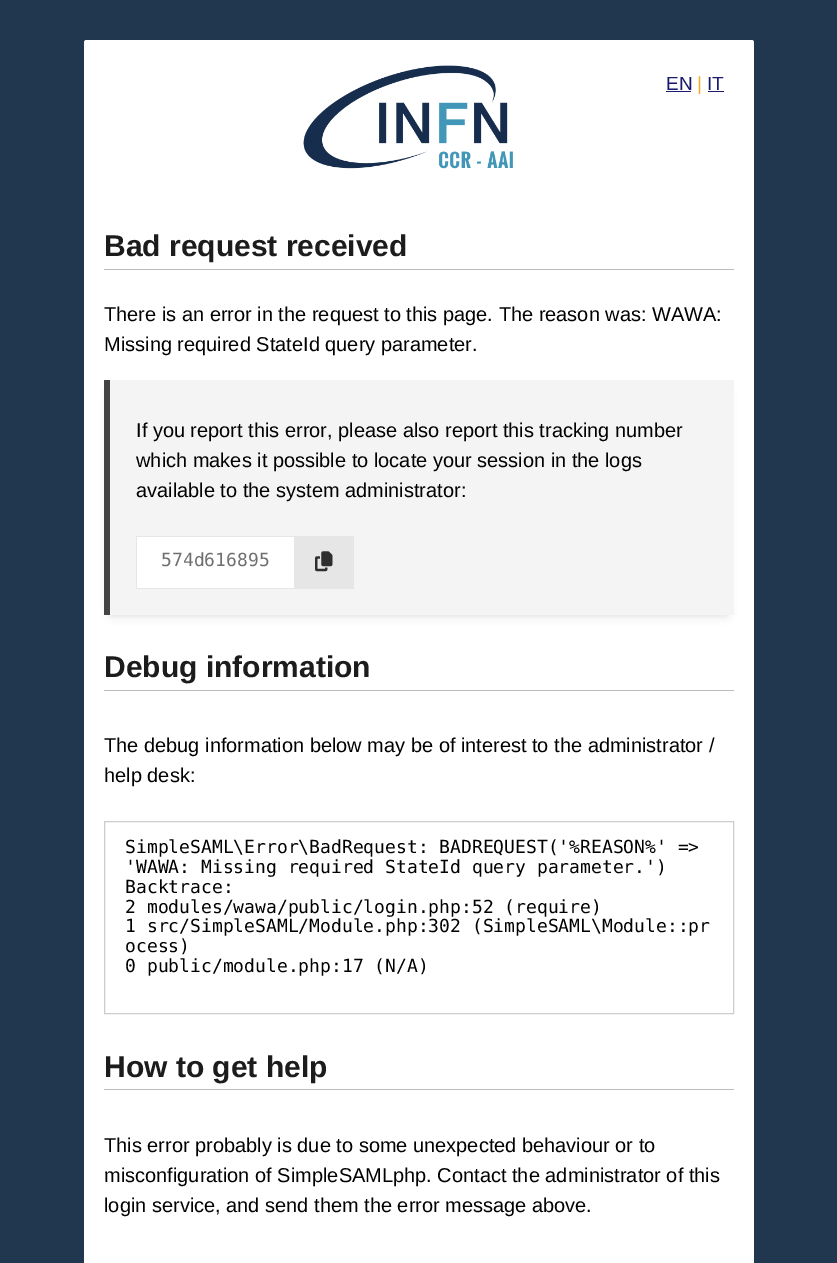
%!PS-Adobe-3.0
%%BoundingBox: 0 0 837 1263
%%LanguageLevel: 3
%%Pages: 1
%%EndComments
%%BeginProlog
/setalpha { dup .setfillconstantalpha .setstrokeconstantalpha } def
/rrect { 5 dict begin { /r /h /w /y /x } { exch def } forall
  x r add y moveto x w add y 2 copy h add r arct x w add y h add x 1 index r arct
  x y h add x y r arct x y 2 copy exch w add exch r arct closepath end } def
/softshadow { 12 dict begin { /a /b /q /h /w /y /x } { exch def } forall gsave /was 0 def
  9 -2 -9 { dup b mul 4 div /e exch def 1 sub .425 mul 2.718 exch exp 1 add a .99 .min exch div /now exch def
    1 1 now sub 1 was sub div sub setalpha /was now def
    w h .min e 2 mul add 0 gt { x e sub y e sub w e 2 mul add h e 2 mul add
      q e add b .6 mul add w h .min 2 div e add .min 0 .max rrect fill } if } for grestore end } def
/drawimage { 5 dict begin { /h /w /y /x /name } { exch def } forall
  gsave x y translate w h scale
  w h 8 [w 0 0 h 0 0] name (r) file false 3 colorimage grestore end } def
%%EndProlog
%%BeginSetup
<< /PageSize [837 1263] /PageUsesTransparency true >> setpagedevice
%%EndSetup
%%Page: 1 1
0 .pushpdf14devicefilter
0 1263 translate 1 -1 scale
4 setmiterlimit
0.125 0.216 0.31 setrgbcolor
0 0 837 1263 rectfill
1 setgray
84 40 670 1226 2.5 rrect fill
(images/1.raw) 303 65 210 104 drawimage
0.098 0.098 0.439 setrgbcolor
666 91 25 1 rectfill
708 91 16 1 rectfill
0.733 setgray
104 269 630 1 rectfill
0 setgray
111 394 615 220 0 5 0.2 softshadow
0.957 setgray
110 380 624 235 rectfill
0.267 setgray
104 380 6 235 rectfill
1 setgray
137 537 157 51 rectfill
0.902 setgray
136 536 158 1 rectfill
136 588 158 1 rectfill
136 536 1 53 rectfill
294 536 60 53 rectfill
(images/2.raw) 315 551 18 21 drawimage
0.733 setgray
104 690 630 1 rectfill
0.8 setgray
104.5 821.5 629 192 rectstroke
0.733 setgray
104 1089 630 1 rectfill
/LiberationSans-Regular [19 0 0 -19 0 0] selectfont
0.098 0.098 0.439 setrgbcolor
666 90 moveto (EN) show
0.976 0.659 0.145 setrgbcolor
697 90 moveto (|) show
0.098 0.098 0.439 setrgbcolor
707 90 moveto (IT) show
/LiberationSans-Bold [30 0 0 -30 0 0] selectfont
0.11 setgray
104 256 moveto (Bad request received) show
/LiberationSans-Regular [20 0 0 -20 0 0] selectfont
0 setgray
104 321 moveto (There is an error in the request to this page. The reason was: WAWA:) show
104 351 moveto (Missing required StateId query parameter.) show
136 437 moveto (If you report this error, please also report this tracking number) show
136 467 moveto (which makes it possible to locate your session in the logs) show
136 497 moveto (available to the system administrator:) show
/DejaVuSansMono-Regular [18 0 0 -18 0 0] selectfont
0.435 setgray
161 566 moveto (574d616895) show
/LiberationSans-Bold [30 0 0 -30 0 0] selectfont
0.11 setgray
104 677 moveto (Debug information) show
/LiberationSans-Regular [20 0 0 -20 0 0] selectfont
0 setgray
104 752 moveto (The debug information below may be of interest to the administrator /) show
104 782 moveto (help desk:) show
/DejaVuSansMono-Regular [18 0 0 -18 0 0] selectfont
125 853 moveto (SimpleSAML\\Error\\BadRequest: BADREQUEST\('%REASON%' =>) show
125 873 moveto ('WAWA: Missing required StateId query parameter.'\)) show
125 893 moveto (Backtrace:) show
125 913 moveto (2 modules/wawa/public/login.php:52 \(require\)) show
125 932 moveto (1 src/SimpleSAML/Module.php:302 \(SimpleSAML\\Module::pr) show
125 952 moveto (ocess\)) show
125 972 moveto (0 public/module.php:17 \(N/A\)) show
/LiberationSans-Bold [30 0 0 -30 0 0] selectfont
0.11 setgray
104 1077 moveto (How to get help) show
/LiberationSans-Regular [20 0 0 -20 0 0] selectfont
0 setgray
104 1152 moveto (This error probably is due to some unexpected behaviour or to) show
104 1182 moveto (misconfiguration of SimpleSAMLphp. Contact the administrator of this) show
104 1212 moveto (login service, and send them the error message above.) show
.poppdf14devicefilter showpage
%%EOF
